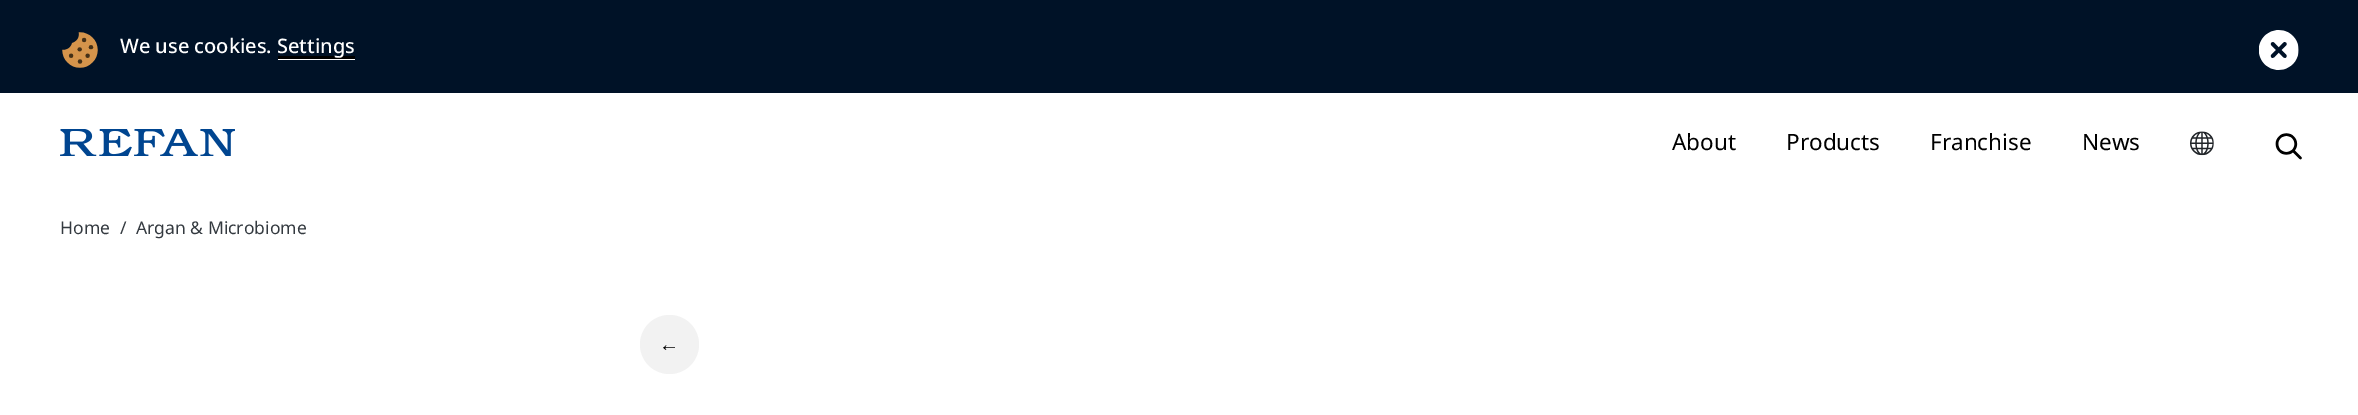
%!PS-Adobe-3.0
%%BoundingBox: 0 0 2358 415
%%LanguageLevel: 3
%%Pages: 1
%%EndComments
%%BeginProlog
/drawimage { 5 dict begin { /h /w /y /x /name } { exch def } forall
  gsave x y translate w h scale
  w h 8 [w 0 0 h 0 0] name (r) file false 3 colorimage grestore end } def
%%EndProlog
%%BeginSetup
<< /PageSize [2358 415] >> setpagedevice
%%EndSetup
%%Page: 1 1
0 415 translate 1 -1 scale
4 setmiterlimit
1 setgray
0 0 2358 415 rectfill
0 0.071 0.153 setrgbcolor
0 0 2358 93 rectfill
(images/1.raw) 62 32 36 36 drawimage
0 setgray
278 56 77 3 rectfill
1 setgray
278 59 77 1 rectfill
(images/2.raw) 2259 30 40 40 drawimage
(images/3.raw) 60 129 175 27 drawimage
(images/4.raw) 2190 131 24 25 drawimage
(images/5.raw) 2275 133 27 27 drawimage
0.949 setgray
newpath 669.5 344.5 29.5 0 360 arc closepath fill
/NotoSans-Medium [20 0 0 -20 0 0] selectfont
1 setgray
120 53 moveto (We use cookies.) show
277 53 moveto (Settings) show
/NotoSans-Regular [22.5 0 0 -22.5 0 0] selectfont
0 setgray
1672 150 moveto (About) show
1786 150 moveto (Products) show
1930 150 moveto (Franchise) show
2082 150 moveto (News) show
/NotoSans-Regular [17.5 0 0 -17.5 0 0] selectfont
0.204 0.227 0.251 setrgbcolor
60 234 moveto (Home) show
120 234 moveto (/) show
136 234 moveto (Argan & Microbiome) show
/LiberationSans-Regular [20 0 0 -20 0 0] selectfont
0 setgray
659 351 moveto (←) show
showpage
%%EOF
